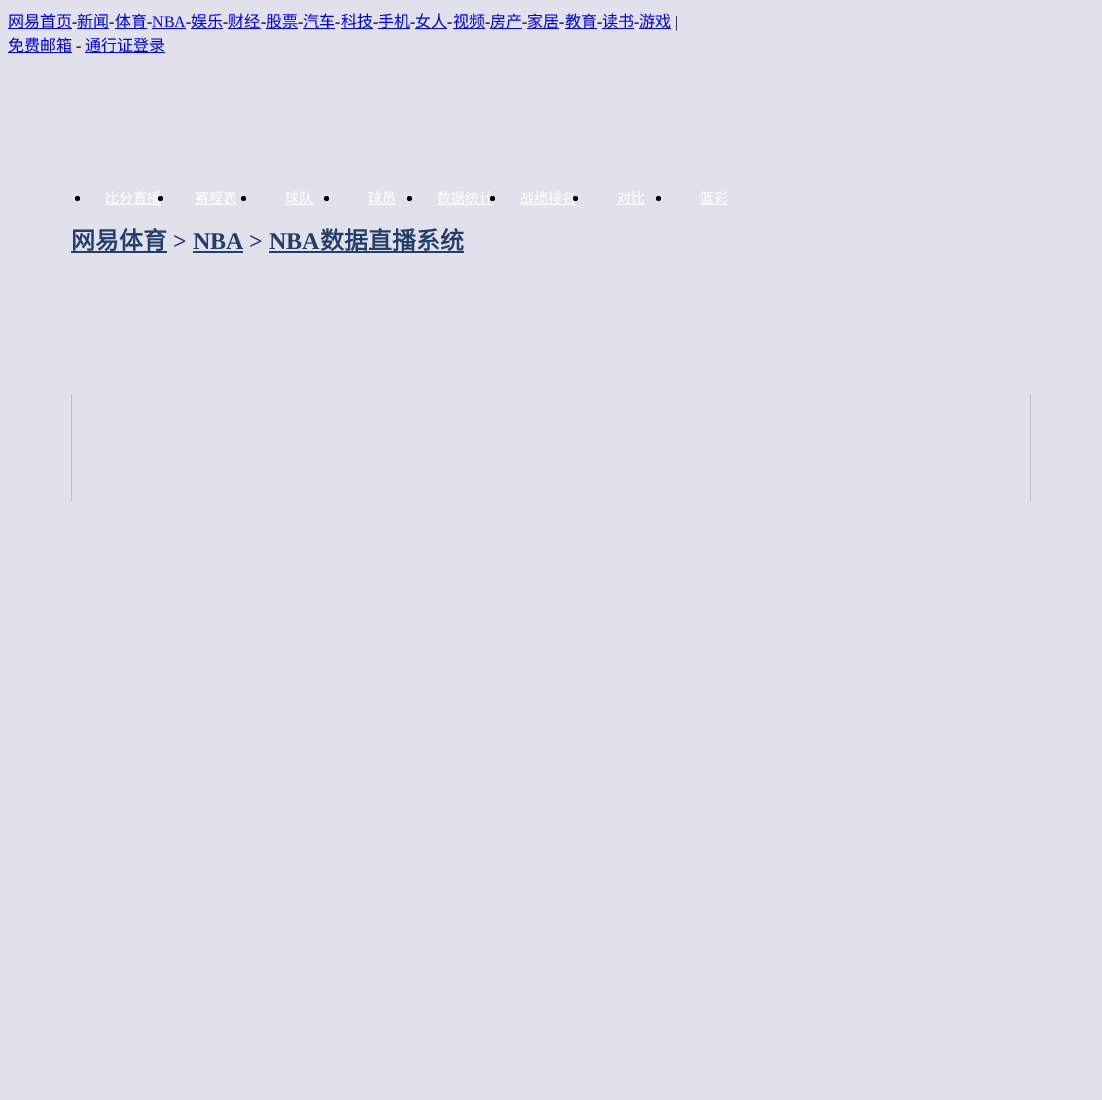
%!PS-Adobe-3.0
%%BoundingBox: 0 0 1102 1100
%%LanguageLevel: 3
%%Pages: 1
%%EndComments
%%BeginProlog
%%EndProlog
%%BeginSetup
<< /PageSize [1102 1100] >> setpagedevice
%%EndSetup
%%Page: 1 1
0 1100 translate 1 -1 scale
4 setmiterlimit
0.878 0.882 0.922 setrgbcolor
0 0 1102 1100 rectfill
0 0 0.933 setrgbcolor
8 28 64 1 rectfill
77 28 32 1 rectfill
115 28 32 1 rectfill
152 28 34 1 rectfill
191 28 32 1 rectfill
228 28 33 1 rectfill
266 28 32 1 rectfill
303 28 32 1 rectfill
341 28 32 1 rectfill
378 28 32 1 rectfill
415 28 32 1 rectfill
453 28 32 1 rectfill
490 28 32 1 rectfill
527 28 32 1 rectfill
565 28 32 1 rectfill
602 28 32 1 rectfill
639 28 32 1 rectfill
8 52 64 1 rectfill
85 52 80 1 rectfill
0 setgray
newpath 77.5 198.5 2.5 0 360 arc closepath fill
1 setgray
105 204 56 1 rectfill
195 204 42 1 rectfill
0 setgray
newpath 243.5 198.5 2.5 0 360 arc closepath fill
1 setgray
285 204 28 1 rectfill
0 setgray
newpath 326.5 198.5 2.5 0 360 arc closepath fill
1 setgray
368 204 28 1 rectfill
0 setgray
newpath 409.5 198.5 2.5 0 360 arc closepath fill
1 setgray
437 204 56 1 rectfill
520 204 56 1 rectfill
617 204 28 1 rectfill
0 setgray
newpath 658.5 198.5 2.5 0 360 arc closepath fill
1 setgray
700 204 28 1 rectfill
0.141 0.239 0.416 setrgbcolor
71 251 96 2 rectfill
269 251 195 2 rectfill
193 251 50 2 rectfill
0.741 0.749 0.796 setrgbcolor
1030 394 1 107 rectfill
71 394 1 107 rectfill
/NotoSansCJKSC-Regular [16 0 0 -16 0 0] selectfont
0 0 0.933 setrgbcolor
8 27 moveto (网易首页) show
/LiberationSerif-Regular [16 0 0 -16 0 0] selectfont
0 setgray
72 27 moveto (-) show
/NotoSansCJKSC-Regular [16 0 0 -16 0 0] selectfont
0 0 0.933 setrgbcolor
77 27 moveto (新闻) show
/LiberationSerif-Regular [16 0 0 -16 0 0] selectfont
0 setgray
109 27 moveto (-) show
/NotoSansCJKSC-Regular [16 0 0 -16 0 0] selectfont
0 0 0.933 setrgbcolor
115 27 moveto (体育) show
/LiberationSerif-Regular [16 0 0 -16 0 0] selectfont
0 setgray
147 27 moveto (-) show
0 0 0.933 setrgbcolor
152 27 moveto (NBA) show
0 setgray
186 27 moveto (-) show
/NotoSansCJKSC-Regular [16 0 0 -16 0 0] selectfont
0 0 0.933 setrgbcolor
191 27 moveto (娱乐) show
/LiberationSerif-Regular [16 0 0 -16 0 0] selectfont
0 setgray
223 27 moveto (-) show
/NotoSansCJKSC-Regular [16 0 0 -16 0 0] selectfont
0 0 0.933 setrgbcolor
228 27 moveto (财经) show
/LiberationSerif-Regular [16 0 0 -16 0 0] selectfont
0 setgray
261 27 moveto (-) show
/NotoSansCJKSC-Regular [16 0 0 -16 0 0] selectfont
0 0 0.933 setrgbcolor
266 27 moveto (股票) show
/LiberationSerif-Regular [16 0 0 -16 0 0] selectfont
0 setgray
298 27 moveto (-) show
/NotoSansCJKSC-Regular [16 0 0 -16 0 0] selectfont
0 0 0.933 setrgbcolor
303 27 moveto (汽车) show
/LiberationSerif-Regular [16 0 0 -16 0 0] selectfont
0 setgray
335 27 moveto (-) show
/NotoSansCJKSC-Regular [16 0 0 -16 0 0] selectfont
0 0 0.933 setrgbcolor
341 27 moveto (科技) show
/LiberationSerif-Regular [16 0 0 -16 0 0] selectfont
0 setgray
373 27 moveto (-) show
/NotoSansCJKSC-Regular [16 0 0 -16 0 0] selectfont
0 0 0.933 setrgbcolor
378 27 moveto (手机) show
/LiberationSerif-Regular [16 0 0 -16 0 0] selectfont
0 setgray
410 27 moveto (-) show
/NotoSansCJKSC-Regular [16 0 0 -16 0 0] selectfont
0 0 0.933 setrgbcolor
415 27 moveto (女人) show
/LiberationSerif-Regular [16 0 0 -16 0 0] selectfont
0 setgray
447 27 moveto (-) show
/NotoSansCJKSC-Regular [16 0 0 -16 0 0] selectfont
0 0 0.933 setrgbcolor
453 27 moveto (视频) show
/LiberationSerif-Regular [16 0 0 -16 0 0] selectfont
0 setgray
485 27 moveto (-) show
/NotoSansCJKSC-Regular [16 0 0 -16 0 0] selectfont
0 0 0.933 setrgbcolor
490 27 moveto (房产) show
/LiberationSerif-Regular [16 0 0 -16 0 0] selectfont
0 setgray
522 27 moveto (-) show
/NotoSansCJKSC-Regular [16 0 0 -16 0 0] selectfont
0 0 0.933 setrgbcolor
527 27 moveto (家居) show
/LiberationSerif-Regular [16 0 0 -16 0 0] selectfont
0 setgray
559 27 moveto (-) show
/NotoSansCJKSC-Regular [16 0 0 -16 0 0] selectfont
0 0 0.933 setrgbcolor
565 27 moveto (教育) show
/LiberationSerif-Regular [16 0 0 -16 0 0] selectfont
0 setgray
597 27 moveto (-) show
/NotoSansCJKSC-Regular [16 0 0 -16 0 0] selectfont
0 0 0.933 setrgbcolor
602 27 moveto (读书) show
/LiberationSerif-Regular [16 0 0 -16 0 0] selectfont
0 setgray
634 27 moveto (-) show
/NotoSansCJKSC-Regular [16 0 0 -16 0 0] selectfont
0 0 0.933 setrgbcolor
639 27 moveto (游戏) show
/LiberationSerif-Regular [16 0 0 -16 0 0] selectfont
0 setgray
675 27 moveto (|) show
/NotoSansCJKSC-Regular [16 0 0 -16 0 0] selectfont
0 0 0.933 setrgbcolor
8 51 moveto (免费邮箱) show
/LiberationSerif-Regular [16 0 0 -16 0 0] selectfont
0 setgray
76 51 moveto (-) show
/NotoSansCJKSC-Regular [16 0 0 -16 0 0] selectfont
0 0 0.933 setrgbcolor
85 51 moveto (通行证登录) show
/NotoSansCJKSC-Regular [14 0 0 -14 0 0] selectfont
1 setgray
105 203 moveto (比分直播) show
0 setgray
newpath 160.5 198.5 2.5 0 360 arc closepath fill
1 setgray
195 203 moveto (赛程表) show
285 203 moveto (球队) show
368 203 moveto (球员) show
437 203 moveto (数据统计) show
0 setgray
newpath 492.5 198.5 2.5 0 360 arc closepath fill
1 setgray
520 203 moveto (战绩排名) show
0 setgray
newpath 575.5 198.5 2.5 0 360 arc closepath fill
1 setgray
617 203 moveto (对比) show
700 203 moveto (篮彩) show
/NotoSansCJKSC-Bold [24 0 0 -24 0 0] selectfont
0.141 0.239 0.416 setrgbcolor
71 249 moveto (网易体育) show
/LiberationSerif-Bold [24 0 0 -24 0 0] selectfont
173 249 moveto (> NBA > NBA) show
/NotoSansCJKSC-Bold [24 0 0 -24 0 0] selectfont
320 249 moveto (数据直播系统) show
showpage
%%EOF
